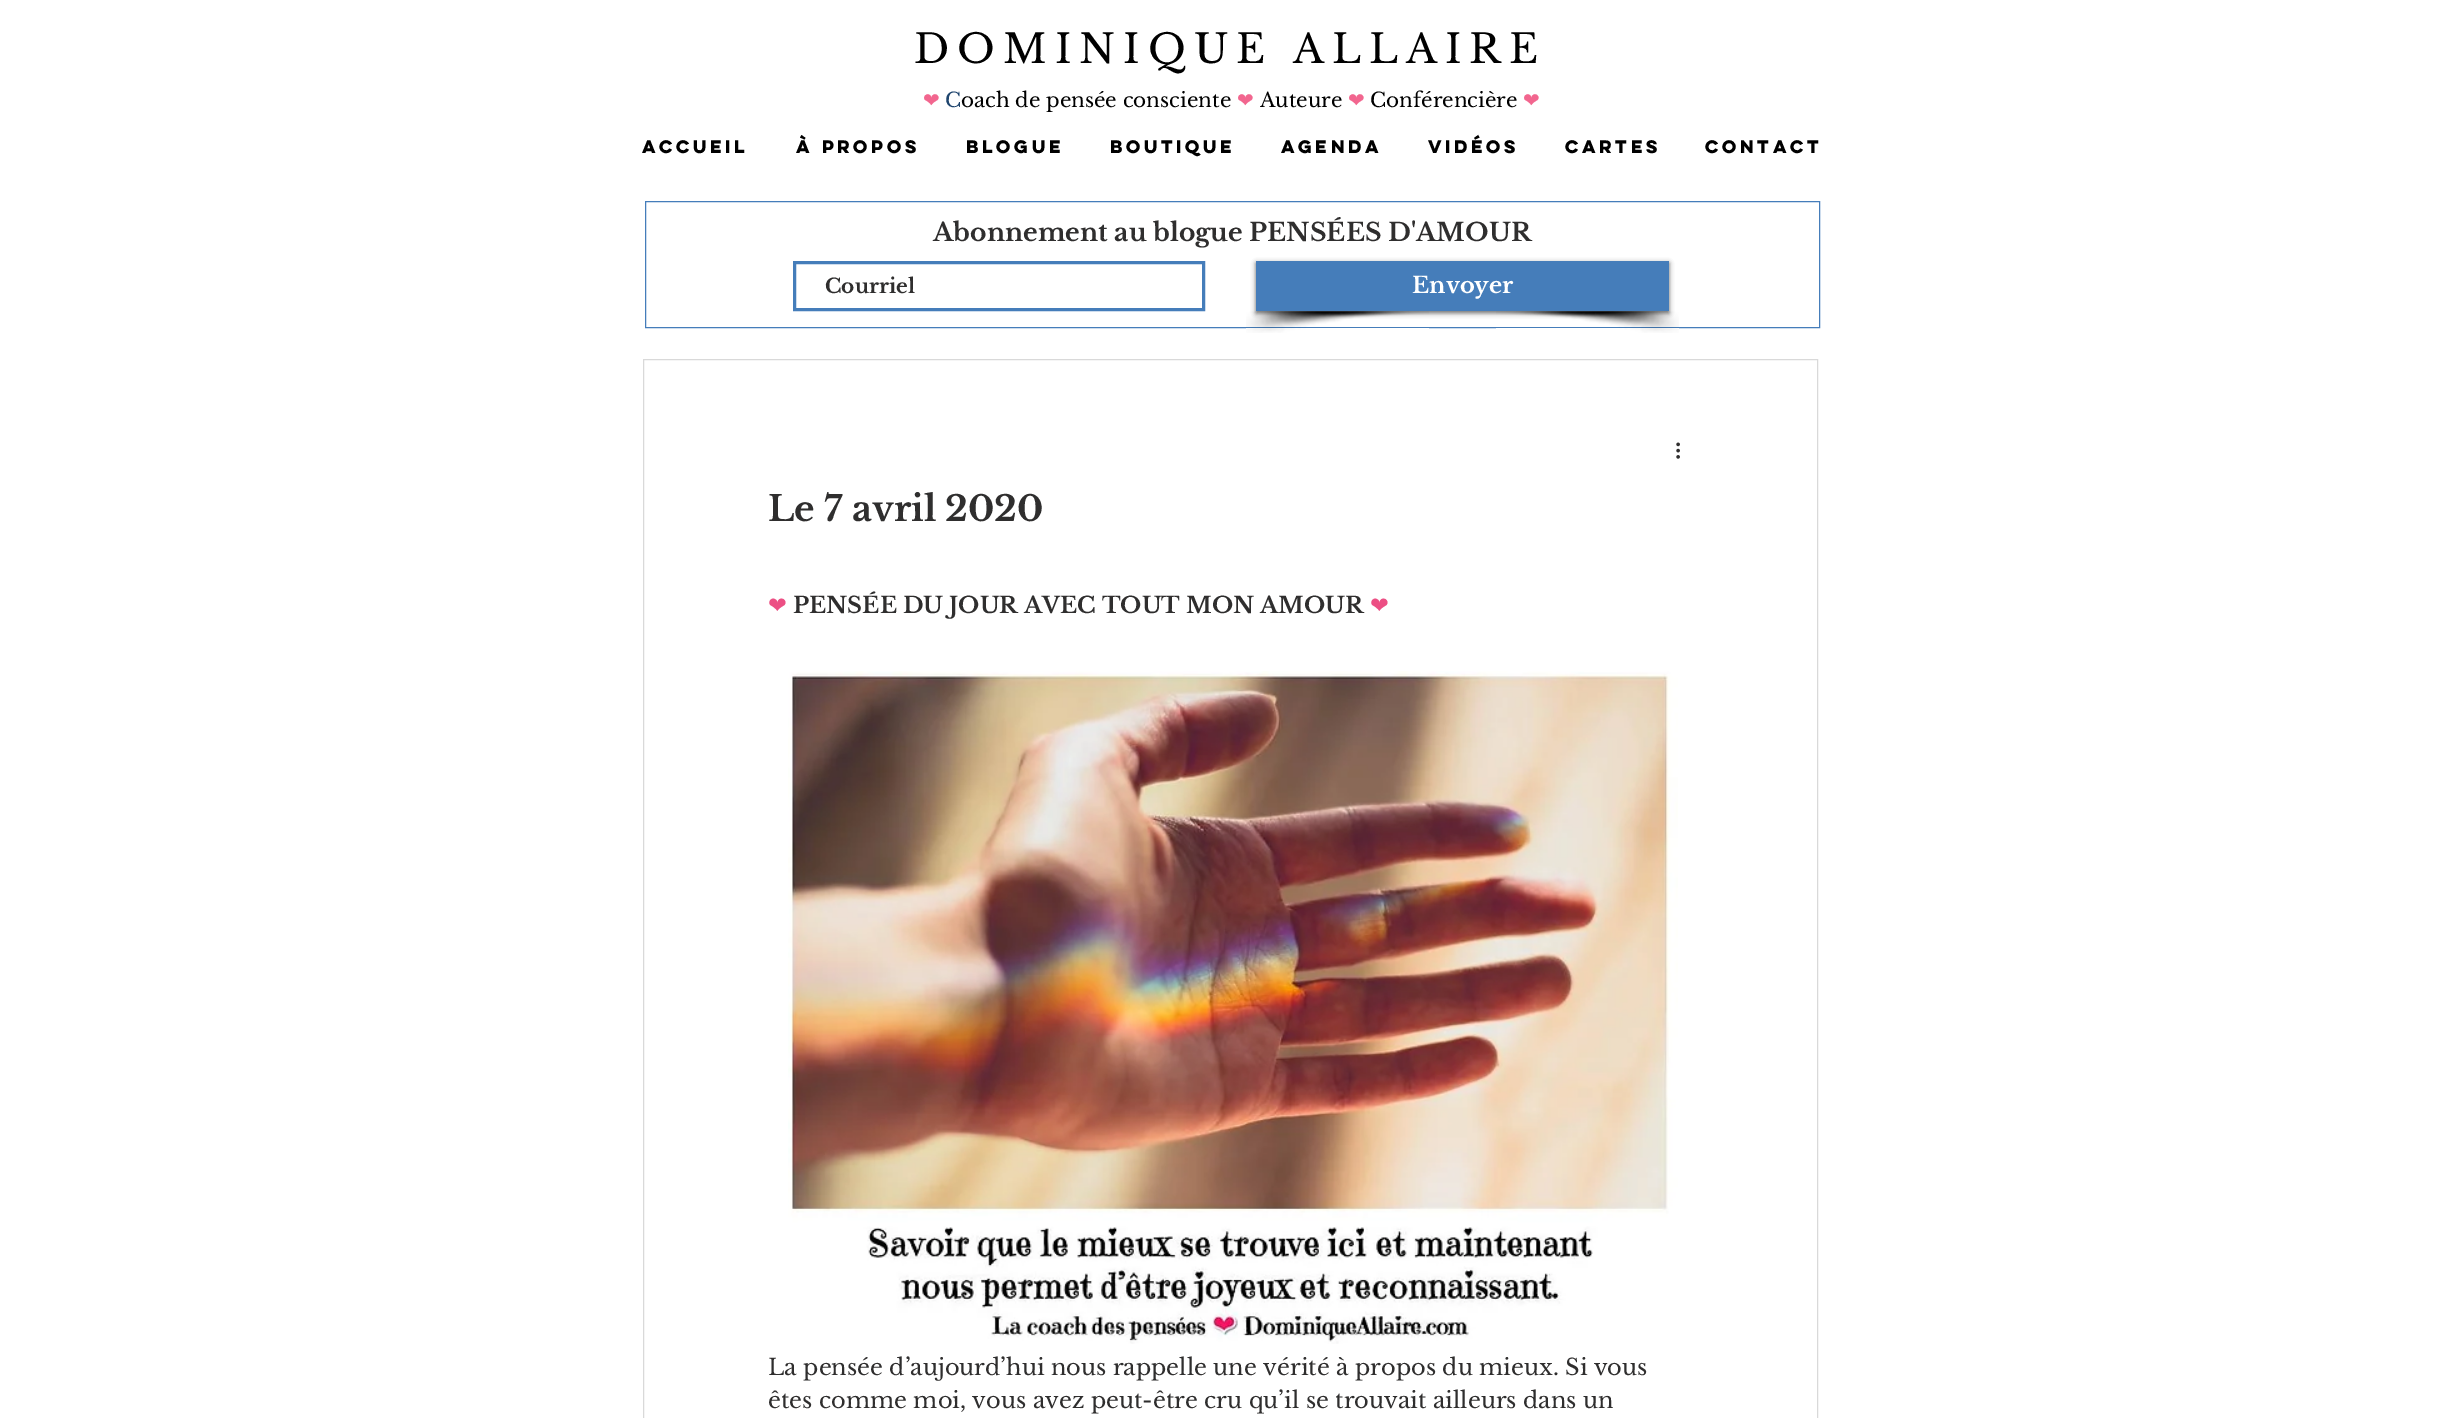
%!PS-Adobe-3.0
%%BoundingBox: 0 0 2462 1418
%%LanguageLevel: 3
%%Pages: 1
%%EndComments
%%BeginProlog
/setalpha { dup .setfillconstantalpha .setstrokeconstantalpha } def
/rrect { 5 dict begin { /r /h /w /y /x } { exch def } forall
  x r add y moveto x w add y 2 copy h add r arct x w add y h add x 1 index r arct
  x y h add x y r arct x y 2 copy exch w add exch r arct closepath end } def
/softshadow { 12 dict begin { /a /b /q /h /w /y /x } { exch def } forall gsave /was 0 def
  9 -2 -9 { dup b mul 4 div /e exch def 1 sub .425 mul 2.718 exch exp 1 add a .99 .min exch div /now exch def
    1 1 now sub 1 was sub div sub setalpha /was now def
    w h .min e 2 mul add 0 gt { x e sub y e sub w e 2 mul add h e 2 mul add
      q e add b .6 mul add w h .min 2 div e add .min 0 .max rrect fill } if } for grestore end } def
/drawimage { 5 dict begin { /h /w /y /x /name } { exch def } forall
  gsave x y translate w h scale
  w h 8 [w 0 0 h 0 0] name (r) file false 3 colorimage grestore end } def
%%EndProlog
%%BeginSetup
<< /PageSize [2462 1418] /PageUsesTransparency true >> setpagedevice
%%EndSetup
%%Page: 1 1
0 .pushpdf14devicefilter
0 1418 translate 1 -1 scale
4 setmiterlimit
1 setgray
0 0 2462 1418 rectfill
0.271 0.49 0.729 setrgbcolor
645.5 201.5 1174 126 rectstroke
3 setlinewidth
794.5 262.5 409 47 rectstroke
(images/1.raw) 1246 311 183 22 drawimage
(images/2.raw) 1496 311 183 22 drawimage
0 setgray
1256 263 413 50 0 2.5 0.6 softshadow
0.271 0.49 0.729 setrgbcolor
1256 261 413 50 rectfill
0.851 setgray
1 setlinewidth
643.5 359.5 1174 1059 rectstroke
(images/3.raw) 1676 442 4 17 drawimage
(images/4.raw) 788 671 890 673 drawimage
/LibreBaskerville-Regular [40 0 0 -40 0 0] selectfont
0 setgray
914 63 moveto 8 0 (DOMINIQUE ALLAIRE) ashow
/DejaVuSans-Regular [20 0 0 -20 0 0] selectfont
0.949 0.4 0.561 setrgbcolor
923 107 moveto (❤) show
/LibreBaskerville-Regular [20 0 0 -20 0 0] selectfont
0.122 0.271 0.431 setrgbcolor
945 107 moveto (C) show
0 setgray
961 107 moveto (oach de pensée consciente) show
/DejaVuSans-Regular [20 0 0 -20 0 0] selectfont
0.949 0.4 0.561 setrgbcolor
1237 107 moveto (❤) show
/LibreBaskerville-Regular [20 0 0 -20 0 0] selectfont
0 setgray
1260 107 moveto (Auteure) show
/DejaVuSans-Regular [20 0 0 -20 0 0] selectfont
0.949 0.4 0.561 setrgbcolor
1348 107 moveto (❤) show
/LibreBaskerville-Regular [20 0 0 -20 0 0] selectfont
0 setgray
1370 107 moveto (Conférencière) show
/DejaVuSans-Regular [20 0 0 -20 0 0] selectfont
0.949 0.4 0.561 setrgbcolor
1523 107 moveto (❤) show
/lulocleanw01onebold-Bold [16.25 0 0 -16.25 0 0] selectfont
0 setgray
642 153 moveto (ACCUEIL) show
796 153 moveto (À PROPOS) show
966 153 moveto (BLOGUE) show
1110 153 moveto (BOUTIQUE) show
1281 153 moveto (AGENDA) show
1428 153 moveto (VIDÉOS) show
1565 153 moveto (CARTES) show
1705 153 moveto (CONTACT) show
/LibreBaskerville-Bold [25 0 0 -25 0 0] selectfont
0.184 0.18 0.18 setrgbcolor
933 241 moveto (Abonnement au blogue PENSÉES D'AMOUR) show
/LibreBaskerville-Bold [20 0 0 -20 0 0] selectfont
825 293 moveto (Courriel) show
/LibreBaskerville-Bold [22.5 0 0 -22.5 0 0] selectfont
1 setgray
1412 293 moveto (Envoyer) show
/LibreBaskerville-Bold [35 0 0 -35 0 0] selectfont
0.184 0.18 0.18 setrgbcolor
768 521 moveto (Le 7 avril 2020) show
/DejaVuSans-Regular [22.5 0 0 -22.5 0 0] selectfont
0.925 0.31 0.518 setrgbcolor
768 613 moveto (❤) show
/LibreBaskerville-Bold [22.5 0 0 -22.5 0 0] selectfont
0.184 0.18 0.18 setrgbcolor
793 613 moveto (PENSÉE DU JOUR AVEC TOUT MON AMOUR) show
/DejaVuSans-Regular [22.5 0 0 -22.5 0 0] selectfont
0.925 0.31 0.518 setrgbcolor
1370 613 moveto (❤) show
/LibreBaskerville-Regular [22.5 0 0 -22.5 0 0] selectfont
0.184 0.18 0.18 setrgbcolor
768 1375 moveto (La pensée d’aujourd’hui nous rappelle une vérité à propos du mieux. Si vous) show
768 1408 moveto (êtes comme moi, vous avez peut-être cru qu’il se trouvait ailleurs dans un) show
.poppdf14devicefilter showpage
%%EOF
